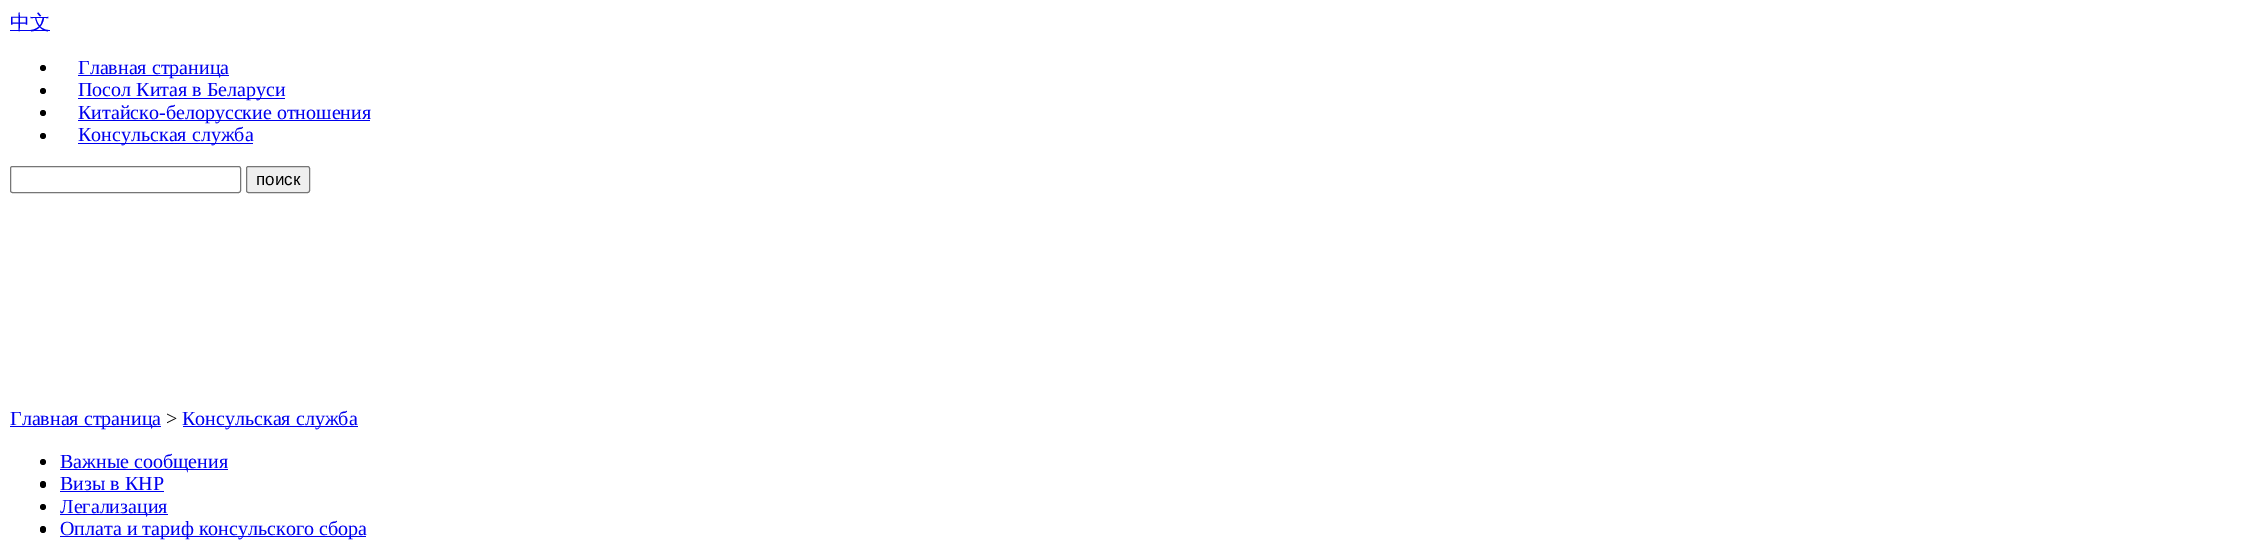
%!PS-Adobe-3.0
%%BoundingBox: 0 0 2262 542
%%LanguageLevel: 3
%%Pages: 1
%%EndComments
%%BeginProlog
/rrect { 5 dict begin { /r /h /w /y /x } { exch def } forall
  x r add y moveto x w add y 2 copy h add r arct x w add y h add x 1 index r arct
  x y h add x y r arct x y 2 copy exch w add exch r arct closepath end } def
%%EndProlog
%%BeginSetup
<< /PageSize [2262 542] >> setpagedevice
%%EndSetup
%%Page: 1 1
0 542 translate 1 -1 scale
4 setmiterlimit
1 setgray
0 0 2262 542 rectfill
0 0 0.933 setrgbcolor
10 30 40 1 rectfill
0 setgray
newpath 43 68 3 0 360 arc closepath fill
0 0 0.933 setrgbcolor
78 75 151 1 rectfill
0 setgray
newpath 43 91 3 0 360 arc closepath fill
0 0 0.933 setrgbcolor
78 98 207 1 rectfill
0 setgray
newpath 43 113 3 0 360 arc closepath fill
0 0 0.933 setrgbcolor
78 120 292 1 rectfill
0 setgray
newpath 43 136 3 0 360 arc closepath fill
0 0 0.933 setrgbcolor
78 143 175 1 rectfill
0.463 setgray
10.5 166.5 230 26 2 rrect stroke
0.937 setgray
246.5 166.5 63 26 2 rrect gsave fill grestore
0.463 setgray
stroke
0 0 0.933 setrgbcolor
10 426 151 1 rectfill
183 426 175 1 rectfill
0 setgray
newpath 43 462 3 0 360 arc closepath fill
0 0 0.933 setrgbcolor
60 469 168 1 rectfill
0 setgray
40 481 6 7 3 rrect fill
0 0 0.933 setrgbcolor
60 491 104 1 rectfill
0 setgray
newpath 43 507 3 0 360 arc closepath fill
0 0 0.933 setrgbcolor
60 514 108 1 rectfill
0 setgray
40 526 6 7 3 rrect fill
0 0 0.933 setrgbcolor
60 536 306 1 rectfill
/WenQuanYiZenHei-Medium [20 0 0 -20 0 0] selectfont
10 29 moveto (中文) show
/LiberationSerif-Regular [20 0 0 -20 0 0] selectfont
78 74 moveto (Главная страница) show
78 96 moveto (Посол Китая в Беларуси) show
78 119 moveto (Китайско-белорусские отношения) show
78 141 moveto (Консульская служба) show
/LiberationSans-Regular [17 0 0 -17 0 0] selectfont
0 setgray
256 185 moveto (поиск) show
/LiberationSerif-Regular [20 0 0 -20 0 0] selectfont
0 0 0.933 setrgbcolor
10 425 moveto (Главная страница) show
0 setgray
166 425 moveto (>) show
0 0 0.933 setrgbcolor
182 425 moveto (Консульская служба) show
60 468 moveto (Важные сообщения) show
60 490 moveto (Визы в КНР) show
60 513 moveto (Легализация) show
60 535 moveto (Оплата и тариф консульского сбора) show
showpage
%%EOF
